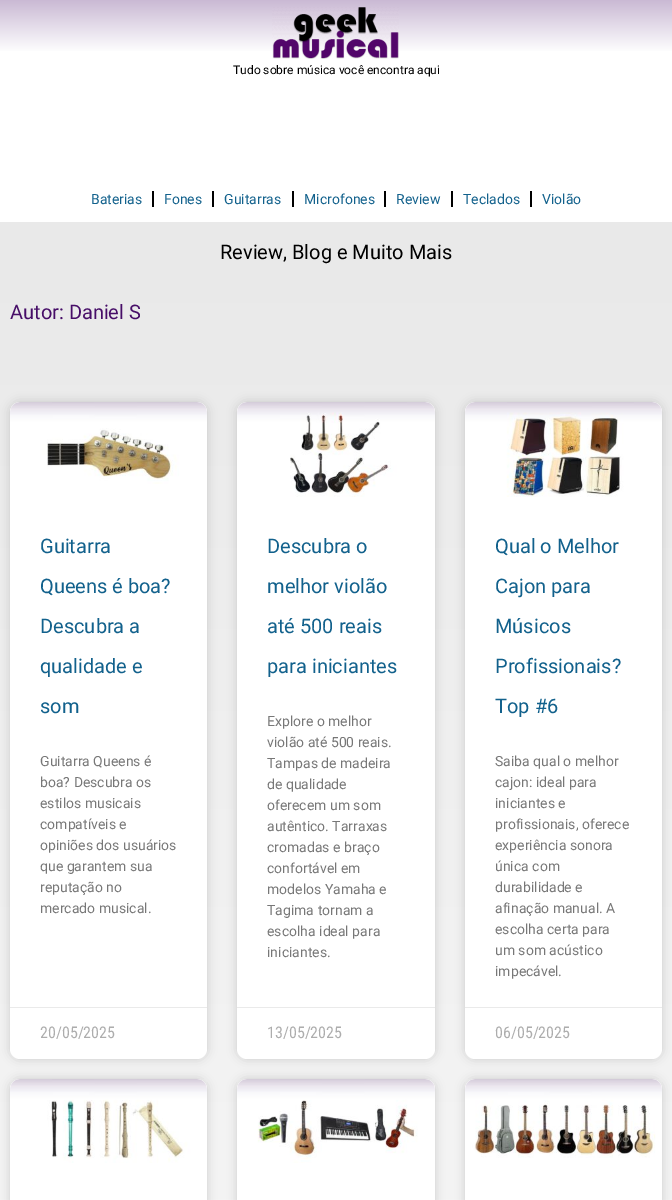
%!PS-Adobe-3.0
%%BoundingBox: 0 0 672 1200
%%LanguageLevel: 3
%%Pages: 1
%%EndComments
%%BeginProlog
/setalpha { dup .setfillconstantalpha .setstrokeconstantalpha } def
/rrect { 5 dict begin { /r /h /w /y /x } { exch def } forall
  x r add y moveto x w add y 2 copy h add r arct x w add y h add x 1 index r arct
  x y h add x y r arct x y 2 copy exch w add exch r arct closepath end } def
/softshadow { 12 dict begin { /a /b /q /h /w /y /x } { exch def } forall gsave /was 0 def
  9 -2 -9 { dup b mul 4 div /e exch def 1 sub .425 mul 2.718 exch exp 1 add a .99 .min exch div /now exch def
    1 1 now sub 1 was sub div sub setalpha /was now def
    w h .min e 2 mul add 0 gt { x e sub y e sub w e 2 mul add h e 2 mul add
      q e add b .6 mul add w h .min 2 div e add .min 0 .max rrect fill } if } for grestore end } def
/drawimage { 5 dict begin { /h /w /y /x /name } { exch def } forall
  gsave x y translate w h scale
  w h 8 [w 0 0 h 0 0] name (r) file false 3 colorimage grestore end } def
%%EndProlog
%%BeginSetup
<< /PageSize [672 1200] /PageUsesTransparency true >> setpagedevice
%%EndSetup
%%Page: 1 1
0 .pushpdf14devicefilter
0 1200 translate 1 -1 scale
4 setmiterlimit
1 setgray
0 0 672 1200 rectfill
gsave newpath 0 0 moveto 672 0 lineto 672 51 lineto 0 51 lineto closepath clip newpath
<< /ShadingType 2 /ColorSpace /DeviceRGB /Coords [336 176 336 0] /Extend [true true] /Function << /FunctionType 3 /Domain [0 1] /Functions [<< /FunctionType 2 /Domain [0 1] /C0 [1 1 1] /C1 [1 1 1] /N 1 >> << /FunctionType 2 /Domain [0 1] /C0 [1 1 1] /C1 [0.792 0.725 0.831] /N 1 >>] /Bounds [0.7] /Encode [0 1 0 1] >> >> shfill grestore
(images/1.raw) 272 7 127 52 drawimage
0 setgray
152 191 2 16 rectfill
212 191 2 16 rectfill
292 191 2 16 rectfill
384 191 2 16 rectfill
451 191 2 16 rectfill
530 191 2 16 rectfill
gsave newpath 0 222 moveto 672 222 lineto 672 1200 lineto 0 1200 lineto closepath clip newpath
<< /ShadingType 2 /ColorSpace /DeviceRGB /Coords [336 222 336 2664] /Extend [true true] /Function << /FunctionType 3 /Domain [0 1] /Functions [<< /FunctionType 2 /Domain [0 1] /C0 [0.914 0.914 0.914] /C1 [1 1 1] /N 1 >> << /FunctionType 2 /Domain [0 1] /C0 [1 1 1] /C1 [1 1 1] /N 1 >>] /Bounds [0.8] /Encode [0 1 0 1] >> >> shfill grestore
10 402 197 657 10 5 0.15 softshadow
1 setgray
10 402 197 657 10 rrect fill
(images/2.raw) 10 402 197 82 drawimage
0.918 setgray
10 1007 197 1 rectfill
0 setgray
237 402 198 657 10 5 0.15 softshadow
1 setgray
237 402 198 657 10 rrect fill
(images/3.raw) 237 402 198 95 drawimage
0.918 setgray
237 1007 198 1 rectfill
0 setgray
465 402 197 657 10 5 0.15 softshadow
1 setgray
465 402 197 657 10 rrect fill
(images/4.raw) 465 402 197 95 drawimage
0.918 setgray
465 1007 197 1 rectfill
0 setgray
10 1079 197 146 10 5 0.15 softshadow
1 setgray
10 1079 197 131 10 rrect fill
(images/5.raw) 10 1079 197 84 drawimage
0 setgray
237 1079 198 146 10 5 0.15 softshadow
1 setgray
237 1079 198 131 10 rrect fill
(images/6.raw) 237 1079 198 84 drawimage
0 setgray
465 1079 197 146 10 5 0.15 softshadow
1 setgray
465 1079 197 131 10 rrect fill
(images/7.raw) 465 1079 197 79 drawimage
/Roboto-Regular [12 0 0 -12 0 0] selectfont
0 setgray
233 74 moveto (Tudo sobre música você encontra aqui) show
/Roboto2-Regular [14 0 0 -14 0 0] selectfont
0.071 0.38 0.549 setrgbcolor
91 204 moveto (Baterias) show
164 204 moveto (Fones) show
224 204 moveto (Guitarras) show
304 204 moveto (Microfones) show
396 204 moveto (Review) show
463 204 moveto (Teclados) show
542 204 moveto (Violão) show
/Roboto2-Regular [20 0 0 -20 0 0] selectfont
0 setgray
220 259 moveto (Review, Blog e Muito Mais) show
0.278 0.055 0.408 setrgbcolor
10 319 moveto (Autor: Daniel S) show
0.071 0.38 0.549 setrgbcolor
40 553 moveto (Guitarra) show
40 593 moveto (Queens é boa?) show
40 633 moveto (Descubra a) show
40 673 moveto (qualidade e) show
40 713 moveto (som) show
/Roboto2-Regular [14 0 0 -14 0 0] selectfont
0.467 setgray
40 766 moveto (Guitarra Queens é) show
40 787 moveto (boa? Descubra os) show
40 808 moveto (estilos musicais) show
40 829 moveto (compatíveis e) show
40 850 moveto (opiniões dos usuários) show
40 871 moveto (que garantem sua) show
40 892 moveto (reputação no) show
40 913 moveto (mercado musical.) show
/RobotoCondensed-Regular [16 0 0 -16 0 0] selectfont
0.678 setgray
40 1038 moveto (20/05/2025) show
/Roboto2-Regular [20 0 0 -20 0 0] selectfont
0.071 0.38 0.549 setrgbcolor
267 553 moveto (Descubra o) show
267 593 moveto (melhor violão) show
267 633 moveto (até 500 reais) show
267 673 moveto (para iniciantes) show
/Roboto2-Regular [14 0 0 -14 0 0] selectfont
0.467 setgray
267 726 moveto (Explore o melhor) show
267 747 moveto (violão até 500 reais.) show
267 768 moveto (Tampas de madeira) show
267 789 moveto (de qualidade) show
267 810 moveto (oferecem um som) show
267 831 moveto (autêntico. Tarraxas) show
267 852 moveto (cromadas e braço) show
267 873 moveto (confortável em) show
267 894 moveto (modelos Yamaha e) show
267 915 moveto (Tagima tornam a) show
267 936 moveto (escolha ideal para) show
267 957 moveto (iniciantes.) show
/RobotoCondensed-Regular [16 0 0 -16 0 0] selectfont
0.678 setgray
267 1038 moveto (13/05/2025) show
/Roboto2-Regular [20 0 0 -20 0 0] selectfont
0.071 0.38 0.549 setrgbcolor
495 553 moveto (Qual o Melhor) show
495 593 moveto (Cajon para) show
495 633 moveto (Músicos) show
495 673 moveto (Profissionais?) show
495 713 moveto (Top #6) show
/Roboto2-Regular [14 0 0 -14 0 0] selectfont
0.467 setgray
495 766 moveto (Saiba qual o melhor) show
495 787 moveto (cajon: ideal para) show
495 808 moveto (iniciantes e) show
495 829 moveto (profissionais, oferece) show
495 850 moveto (experiência sonora) show
495 871 moveto (única com) show
495 892 moveto (durabilidade e) show
495 913 moveto (afinação manual. A) show
495 934 moveto (escolha certa para) show
495 955 moveto (um som acústico) show
495 976 moveto (impecável.) show
/RobotoCondensed-Regular [16 0 0 -16 0 0] selectfont
0.678 setgray
495 1038 moveto (06/05/2025) show
.poppdf14devicefilter showpage
%%EOF
